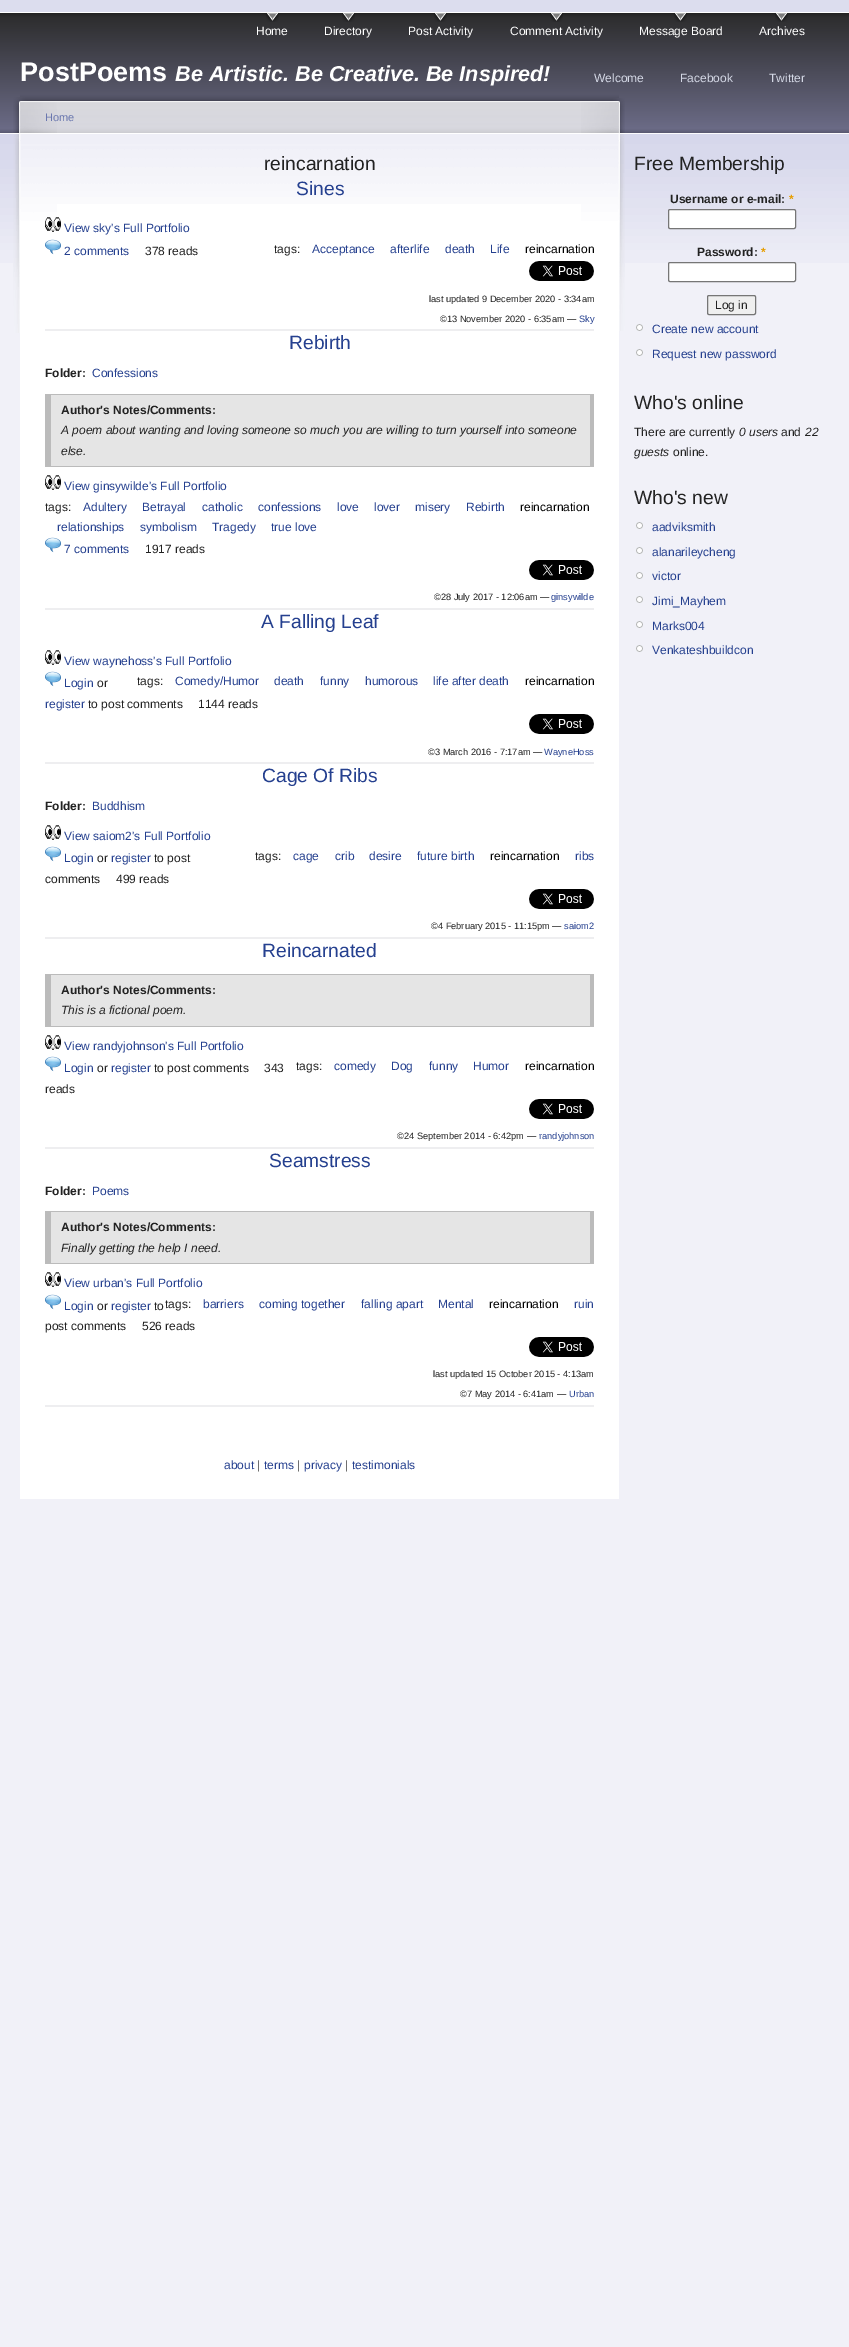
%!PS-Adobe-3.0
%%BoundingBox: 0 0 849 2347
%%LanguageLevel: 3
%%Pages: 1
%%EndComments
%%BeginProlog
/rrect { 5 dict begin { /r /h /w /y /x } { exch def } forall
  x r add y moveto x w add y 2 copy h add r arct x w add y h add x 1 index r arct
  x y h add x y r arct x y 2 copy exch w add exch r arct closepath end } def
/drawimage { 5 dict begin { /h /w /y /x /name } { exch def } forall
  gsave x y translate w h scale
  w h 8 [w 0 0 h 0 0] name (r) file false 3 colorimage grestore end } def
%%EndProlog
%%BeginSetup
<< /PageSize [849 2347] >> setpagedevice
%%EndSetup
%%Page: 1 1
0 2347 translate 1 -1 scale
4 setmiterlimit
0.945 0.945 0.973 setrgbcolor
0 0 849 2347 rectfill
0.863 0.867 0.933 setrgbcolor
0 0 849 12 rectfill
(images/1.raw) 0 12 849 251 drawimage
(images/2.raw) 266 13 13 9 drawimage
(images/2.raw) 342 13 13 9 drawimage
(images/2.raw) 434 13 13 9 drawimage
(images/2.raw) 550 13 13 9 drawimage
(images/2.raw) 674 13 13 9 drawimage
(images/2.raw) 775 13 13 9 drawimage
1 setgray
20 204 599 1295 rectfill
(images/3.raw) 20 92 599 112 drawimage
(images/4.raw) 581 98 44 233 drawimage
(images/5.raw) 13 97 44 236 drawimage
0.933 0.933 0.941 setrgbcolor
45 329 549 2 rectfill
(images/6.raw) 45 217 16 15 drawimage
(images/7.raw) 45 239 16 16 drawimage
(images/8.raw) 529 261 65 20 drawimage
45 608 549 2 rectfill
0.898 setgray
51 395 539 71 rectfill
0.733 setgray
45 394 549 1 rectfill
590 394 4 73 rectfill
45 466 549 1 rectfill
45 394 6 73 rectfill
(images/9.raw) 45 475 16 15 drawimage
(images/7.raw) 45 537 16 16 drawimage
(images/8.raw) 529 560 65 20 drawimage
0.933 0.933 0.941 setrgbcolor
45 762 549 2 rectfill
(images/9.raw) 45 650 16 15 drawimage
(images/7.raw) 45 671 16 16 drawimage
(images/8.raw) 529 714 65 20 drawimage
45 937 549 2 rectfill
(images/9.raw) 45 825 16 15 drawimage
(images/7.raw) 45 846 16 16 drawimage
(images/8.raw) 529 889 65 20 drawimage
45 1147 549 2 rectfill
0.898 setgray
51 975 539 51 rectfill
0.733 setgray
45 974 549 1 rectfill
590 974 4 53 rectfill
45 1026 549 1 rectfill
45 974 6 53 rectfill
(images/9.raw) 45 1035 16 15 drawimage
(images/7.raw) 45 1056 16 16 drawimage
(images/8.raw) 529 1099 65 20 drawimage
0.933 0.933 0.941 setrgbcolor
45 1405 549 2 rectfill
0.898 setgray
51 1212 539 51 rectfill
0.733 setgray
45 1211 549 1 rectfill
590 1211 4 53 rectfill
45 1263 549 1 rectfill
45 1211 6 53 rectfill
(images/9.raw) 45 1272 16 15 drawimage
(images/7.raw) 45 1294 16 16 drawimage
(images/8.raw) 529 1337 65 20 drawimage
1 setgray
668.5 209.5 127 19 1.5 rrect gsave fill grestore
0.463 setgray
stroke
1 setgray
668.5 262.5 127 19 1.5 rrect gsave fill grestore
0.463 setgray
stroke
0.937 setgray
707.5 295.5 48 19 1.5 rrect gsave fill grestore
0.463 setgray
stroke
(images/10.raw) 636 324 7 7 drawimage
(images/10.raw) 636 349 7 7 drawimage
(images/10.raw) 636 522 7 7 drawimage
(images/10.raw) 636 547 7 7 drawimage
(images/10.raw) 636 572 7 7 drawimage
(images/10.raw) 636 596 7 7 drawimage
(images/10.raw) 636 621 7 7 drawimage
(images/10.raw) 636 645 7 7 drawimage
/LiberationSans-Regular [12 0 0 -12 0 0] selectfont
1 setgray
256 35 moveto (Home) show
324 35 moveto (Directory) show
408 35 moveto (Post Activity) show
510 35 moveto (Comment Activity) show
639 35 moveto (Message Board) show
759 35 moveto (Archives) show
/LiberationSans-Bold [27 0 0 -27 0 0] selectfont
20 81 moveto (PostPoems) show
/LiberationSans-BoldItalic [21.6 0 0 -21.6 0 0] selectfont
175 81 moveto (Be Artistic. Be Creative. Be Inspired!) show
/LiberationSans-Regular [12 0 0 -12 0 0] selectfont
0.831 0.847 0.898 setrgbcolor
594 82 moveto (Welcome) show
680 82 moveto (Facebook) show
769 82 moveto (Twitter) show
/LiberationSans-Regular [11 0 0 -11 0 0] selectfont
0.416 0.467 0.686 setrgbcolor
45 121 moveto (Home) show
/LiberationSans-Regular [19.25 0 0 -19.25 0 0] selectfont
0.133 setgray
264 170 moveto (reincarnation) show
0.145 0.251 0.561 setrgbcolor
296 195 moveto (Sines) show
/LiberationSans-Regular [12 0 0 -12 0 0] selectfont
64 232 moveto (View sky's Full Portfolio) show
64 255 moveto (2 comments) show
0.133 setgray
145 255 moveto (378 reads) show
274 253 moveto (tags:) show
0.145 0.251 0.561 setrgbcolor
312 253 moveto (Acceptance) show
390 253 moveto (afterlife) show
445 253 moveto (death) show
490 253 moveto (Life) show
0 setgray
525 253 moveto (reincarnation) show
/LiberationSans-Regular [9.25 0 0 -9.25 0 0] selectfont
0.133 setgray
429 302 moveto (last updated 9 December 2020 - 3:34am) show
440 322 moveto (©13 November 2020 - 6:35am —) show
0.145 0.251 0.561 setrgbcolor
579 322 moveto (Sky) show
/LiberationSans-Regular [19.25 0 0 -19.25 0 0] selectfont
289 349 moveto (Rebirth) show
/LiberationSans-Bold [12 0 0 -12 0 0] selectfont
0.133 setgray
45 377 moveto (Folder:) show
/LiberationSans-Regular [12 0 0 -12 0 0] selectfont
0.145 0.251 0.561 setrgbcolor
92 377 moveto (Confessions) show
/LiberationSans-Bold [12 0 0 -12 0 0] selectfont
0.133 setgray
61 414 moveto (Author's Notes/Comments:) show
/LiberationSans-Italic [12 0 0 -12 0 0] selectfont
61 434 moveto (A poem about wanting and loving someone so much you are willing to turn yourself into someone) show
61 455 moveto (else.) show
/LiberationSans-Regular [12 0 0 -12 0 0] selectfont
0.145 0.251 0.561 setrgbcolor
64 490 moveto (View ginsywilde's Full Portfolio) show
0.133 setgray
45 511 moveto (tags:) show
0.145 0.251 0.561 setrgbcolor
83 511 moveto (Adultery) show
142 511 moveto (Betrayal) show
202 511 moveto (catholic) show
258 511 moveto (confessions) show
337 511 moveto (love) show
374 511 moveto (lover) show
415 511 moveto (misery) show
466 511 moveto (Rebirth) show
0 setgray
520 511 moveto (reincarnation) show
0.145 0.251 0.561 setrgbcolor
57 531 moveto (relationships) show
140 531 moveto (symbolism) show
212 531 moveto (Tragedy) show
271 531 moveto (true love) show
64 553 moveto (7 comments) show
0.133 setgray
145 553 moveto (1917 reads) show
/LiberationSans-Regular [9.25 0 0 -9.25 0 0] selectfont
434 600 moveto (©28 July 2017 - 12:06am —) show
0.145 0.251 0.561 setrgbcolor
551 600 moveto (ginsywilde) show
/LiberationSans-Regular [19.25 0 0 -19.25 0 0] selectfont
261 628 moveto (A Falling Leaf) show
/LiberationSans-Regular [12 0 0 -12 0 0] selectfont
64 665 moveto (View waynehoss's Full Portfolio) show
0.133 setgray
137 685 moveto (tags:) show
0.145 0.251 0.561 setrgbcolor
175 685 moveto (Comedy/Humor) show
274 685 moveto (death) show
320 685 moveto (funny) show
365 685 moveto (humorous) show
433 685 moveto (life after death) show
0 setgray
525 685 moveto (reincarnation) show
0.145 0.251 0.561 setrgbcolor
64 687 moveto (Login) show
0.133 setgray
97 687 moveto (or) show
0.145 0.251 0.561 setrgbcolor
45 708 moveto (register) show
0.133 setgray
88 708 moveto (to post comments) show
198 708 moveto (1144 reads) show
/LiberationSans-Regular [9.25 0 0 -9.25 0 0] selectfont
428 755 moveto (©3 March 2016 - 7:17am —) show
0.145 0.251 0.561 setrgbcolor
544 755 moveto (WayneHoss) show
/LiberationSans-Regular [19.25 0 0 -19.25 0 0] selectfont
262 782 moveto (Cage Of Ribs) show
/LiberationSans-Bold [12 0 0 -12 0 0] selectfont
0.133 setgray
45 810 moveto (Folder:) show
/LiberationSans-Regular [12 0 0 -12 0 0] selectfont
0.145 0.251 0.561 setrgbcolor
92 810 moveto (Buddhism) show
64 840 moveto (View saiom2's Full Portfolio) show
64 862 moveto (Login) show
0.133 setgray
97 862 moveto (or) show
0.145 0.251 0.561 setrgbcolor
111 862 moveto (register) show
0.133 setgray
154 862 moveto (to post) show
45 883 moveto (comments) show
116 883 moveto (499 reads) show
255 860 moveto (tags:) show
0.145 0.251 0.561 setrgbcolor
293 860 moveto (cage) show
335 860 moveto (crib) show
369 860 moveto (desire) show
417 860 moveto (future birth) show
0 setgray
490 860 moveto (reincarnation) show
0.145 0.251 0.561 setrgbcolor
575 860 moveto (ribs) show
/LiberationSans-Regular [9.25 0 0 -9.25 0 0] selectfont
0.133 setgray
431 929 moveto (©4 February 2015 - 11:15pm —) show
0.145 0.251 0.561 setrgbcolor
564 929 moveto (saiom2) show
/LiberationSans-Regular [19.25 0 0 -19.25 0 0] selectfont
262 957 moveto (Reincarnated) show
/LiberationSans-Bold [12 0 0 -12 0 0] selectfont
0.133 setgray
61 994 moveto (Author's Notes/Comments:) show
/LiberationSans-Italic [12 0 0 -12 0 0] selectfont
61 1014 moveto (This is a fictional poem.) show
/LiberationSans-Regular [12 0 0 -12 0 0] selectfont
0.145 0.251 0.561 setrgbcolor
64 1050 moveto (View randyjohnson's Full Portfolio) show
64 1072 moveto (Login) show
0.133 setgray
97 1072 moveto (or) show
0.145 0.251 0.561 setrgbcolor
111 1072 moveto (register) show
0.133 setgray
154 1072 moveto (to post comments) show
264 1072 moveto (343) show
45 1093 moveto (reads) show
296 1070 moveto (tags:) show
0.145 0.251 0.561 setrgbcolor
334 1070 moveto (comedy) show
391 1070 moveto (Dog) show
429 1070 moveto (funny) show
473 1070 moveto (Humor) show
0 setgray
525 1070 moveto (reincarnation) show
/LiberationSans-Regular [9.25 0 0 -9.25 0 0] selectfont
0.133 setgray
397 1139 moveto (©24 September 2014 - 6:42pm —) show
0.145 0.251 0.561 setrgbcolor
539 1139 moveto (randyjohnson) show
/LiberationSans-Regular [19.25 0 0 -19.25 0 0] selectfont
269 1167 moveto (Seamstress) show
/LiberationSans-Bold [12 0 0 -12 0 0] selectfont
0.133 setgray
45 1195 moveto (Folder:) show
/LiberationSans-Regular [12 0 0 -12 0 0] selectfont
0.145 0.251 0.561 setrgbcolor
92 1195 moveto (Poems) show
/LiberationSans-Bold [12 0 0 -12 0 0] selectfont
0.133 setgray
61 1231 moveto (Author's Notes/Comments:) show
/LiberationSans-Italic [12 0 0 -12 0 0] selectfont
61 1252 moveto (Finally getting the help I need.) show
/LiberationSans-Regular [12 0 0 -12 0 0] selectfont
0.145 0.251 0.561 setrgbcolor
64 1287 moveto (View urban's Full Portfolio) show
64 1310 moveto (Login) show
0.133 setgray
97 1310 moveto (or) show
0.145 0.251 0.561 setrgbcolor
111 1310 moveto (register) show
0.133 setgray
154 1310 moveto (to) show
45 1330 moveto (post comments) show
142 1330 moveto (526 reads) show
165 1308 moveto (tags:) show
0.145 0.251 0.561 setrgbcolor
203 1308 moveto (barriers) show
259 1308 moveto (coming together) show
361 1308 moveto (falling apart) show
438 1308 moveto (Mental) show
0 setgray
489 1308 moveto (reincarnation) show
0.145 0.251 0.561 setrgbcolor
574 1308 moveto (ruin) show
/LiberationSans-Regular [9.25 0 0 -9.25 0 0] selectfont
0.133 setgray
433 1377 moveto (last updated 15 October 2015 - 4:13am) show
460 1397 moveto (©7 May 2014 - 6:41am —) show
0.145 0.251 0.561 setrgbcolor
569 1397 moveto (Urban) show
/LiberationSans-Regular [12 0 0 -12 0 0] selectfont
224 1469 moveto (about) show
0.435 setgray
257 1469 moveto (|) show
0.145 0.251 0.561 setrgbcolor
264 1469 moveto (terms) show
0.435 setgray
297 1469 moveto (|) show
0.145 0.251 0.561 setrgbcolor
304 1469 moveto (privacy) show
0.435 setgray
345 1469 moveto (|) show
0.145 0.251 0.561 setrgbcolor
352 1469 moveto (testimonials) show
/LiberationSans-Regular [19.25 0 0 -19.25 0 0] selectfont
0.133 setgray
634 170 moveto (Free Membership) show
/LiberationSans-Bold [12 0 0 -12 0 0] selectfont
670 203 moveto (Username or e-mail:) show
0.906 0.62 0 setrgbcolor
789 203 moveto (*) show
0.133 setgray
697 256 moveto (Password:) show
0.906 0.62 0 setrgbcolor
761 256 moveto (*) show
/LiberationSans-Regular [12 0 0 -12 0 0] selectfont
0.133 setgray
715 309 moveto (Log in) show
0.145 0.251 0.561 setrgbcolor
652 333 moveto (Create new account) show
652 358 moveto (Request new password) show
/LiberationSans-Regular [19.25 0 0 -19.25 0 0] selectfont
0.133 setgray
634 409 moveto (Who's online) show
/LiberationSans-Regular [12 0 0 -12 0 0] selectfont
634 436 moveto (There are currently) show
/LiberationSans-Italic [12 0 0 -12 0 0] selectfont
739 436 moveto (0 users) show
/LiberationSans-Regular [12 0 0 -12 0 0] selectfont
781 436 moveto (and) show
/LiberationSans-Italic [12 0 0 -12 0 0] selectfont
805 436 moveto (22) show
634 456 moveto (guests) show
/LiberationSans-Regular [12 0 0 -12 0 0] selectfont
673 456 moveto (online.) show
/LiberationSans-Regular [19.25 0 0 -19.25 0 0] selectfont
634 504 moveto (Who's new) show
/LiberationSans-Regular [12 0 0 -12 0 0] selectfont
0.145 0.251 0.561 setrgbcolor
652 531 moveto (aadviksmith) show
652 556 moveto (alanarileycheng) show
652 580 moveto (victor) show
652 605 moveto (Jimi_Mayhem) show
652 630 moveto (Marks004) show
652 654 moveto (Venkateshbuildcon) show
showpage
%%EOF
